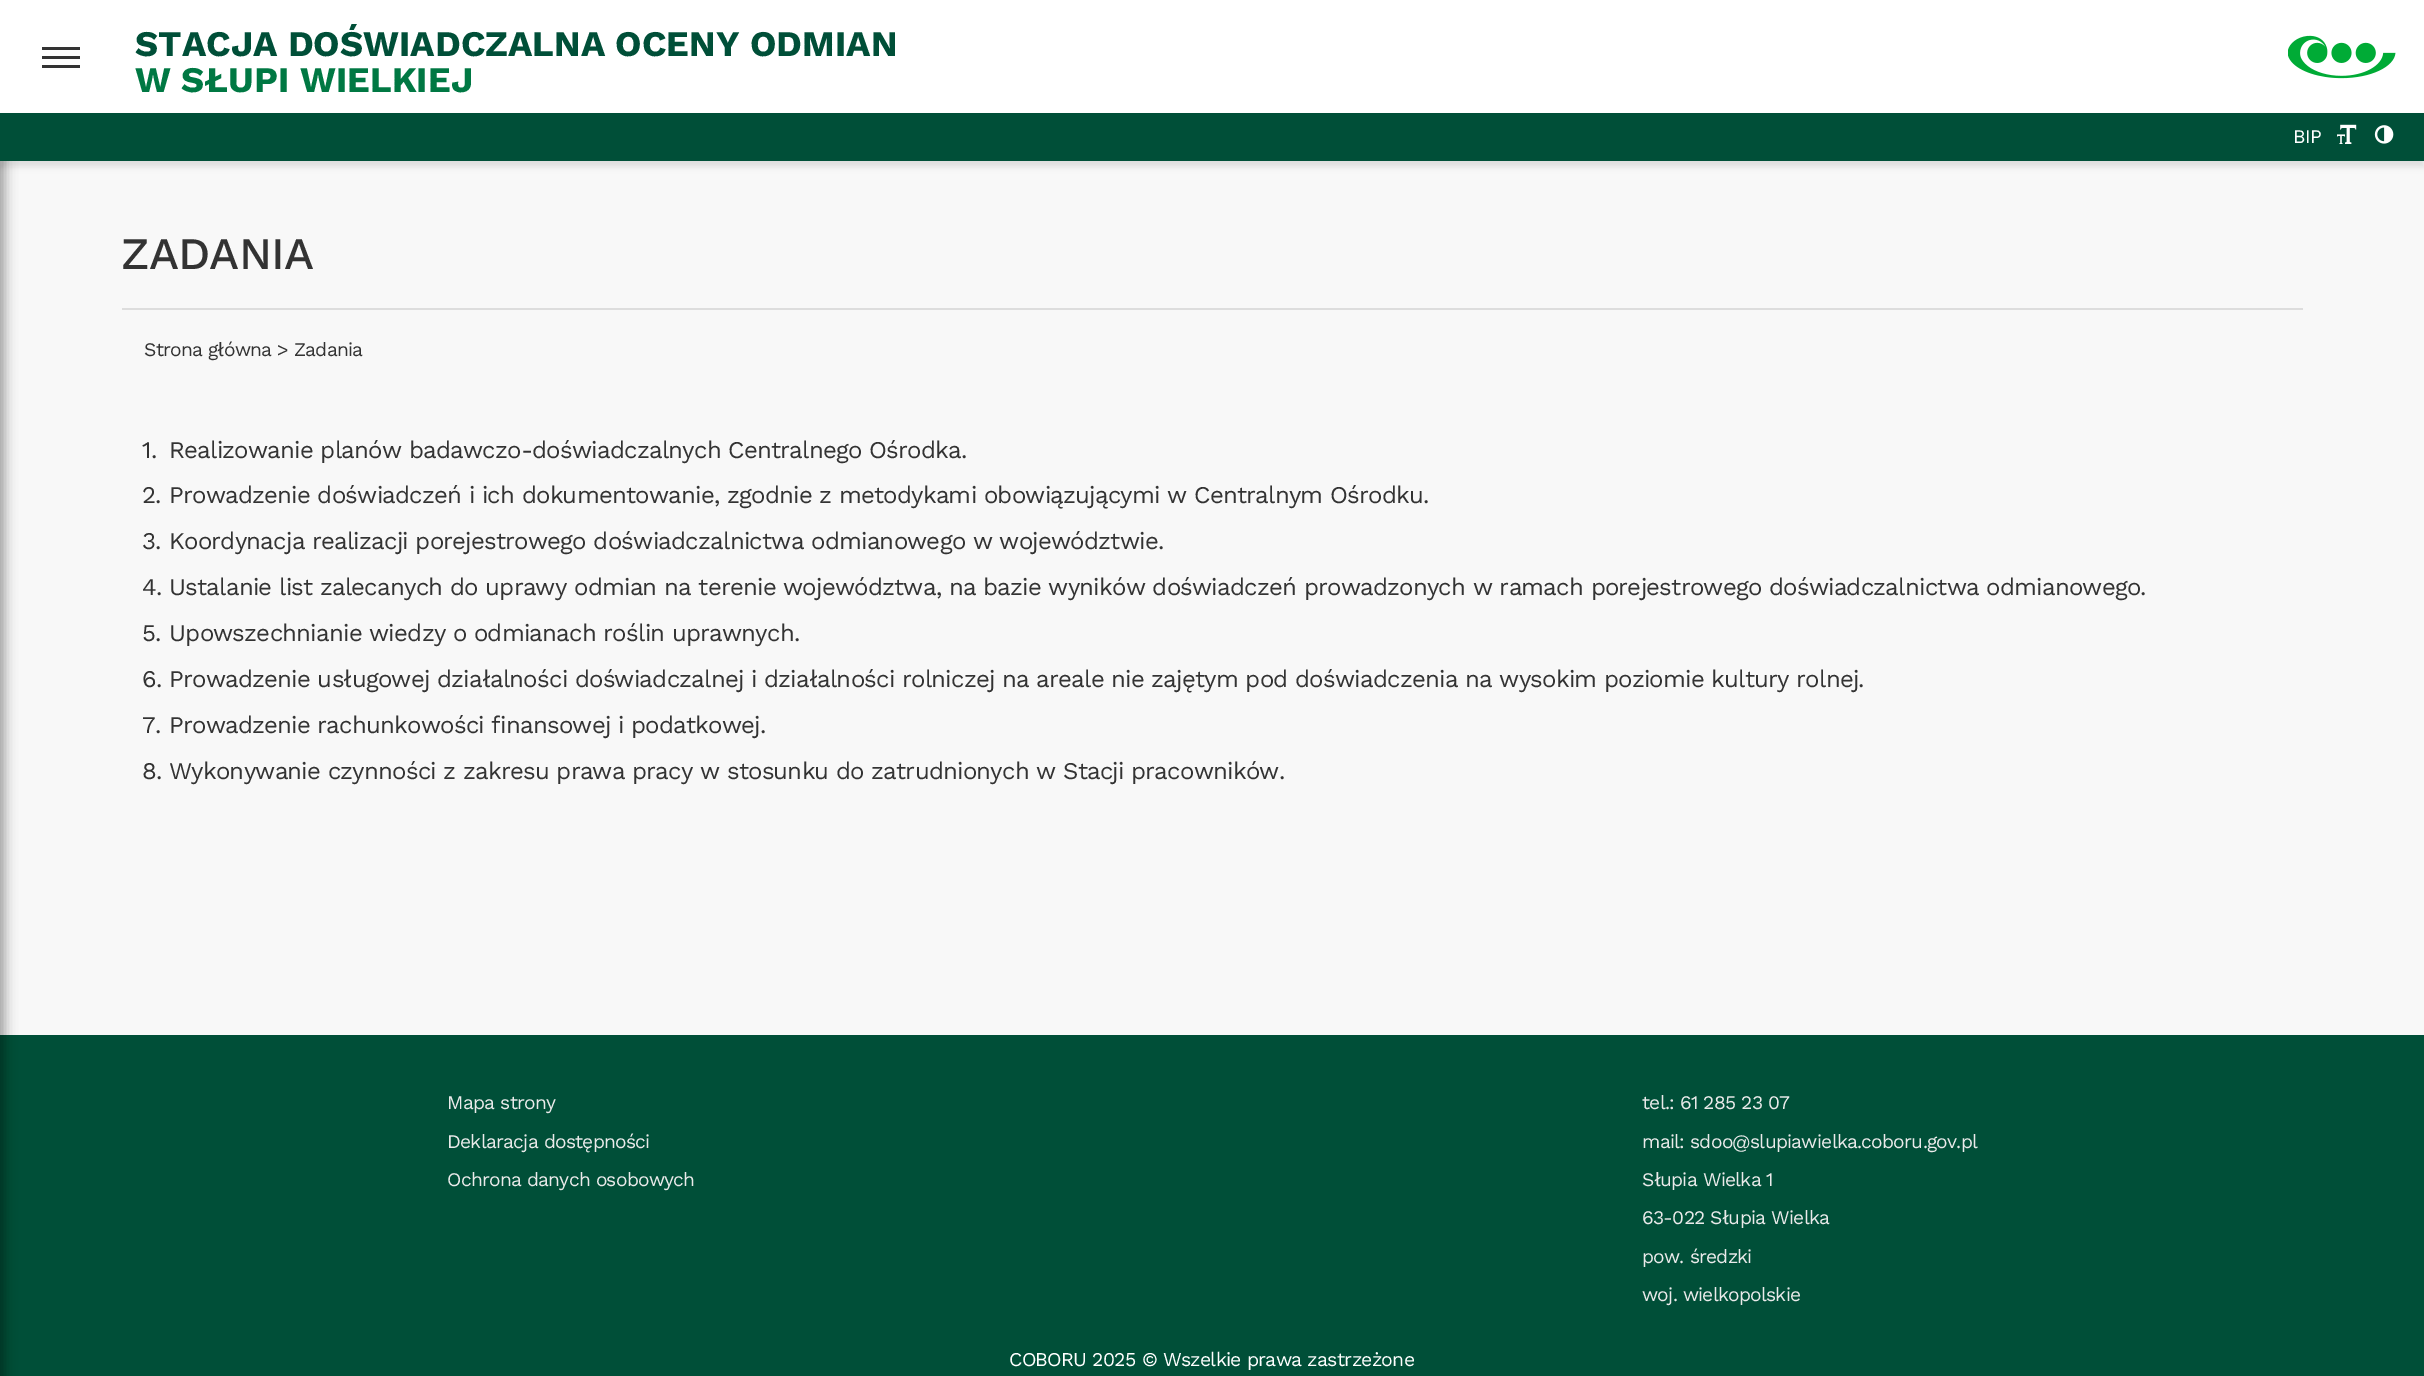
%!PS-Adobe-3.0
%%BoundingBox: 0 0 2424 1376
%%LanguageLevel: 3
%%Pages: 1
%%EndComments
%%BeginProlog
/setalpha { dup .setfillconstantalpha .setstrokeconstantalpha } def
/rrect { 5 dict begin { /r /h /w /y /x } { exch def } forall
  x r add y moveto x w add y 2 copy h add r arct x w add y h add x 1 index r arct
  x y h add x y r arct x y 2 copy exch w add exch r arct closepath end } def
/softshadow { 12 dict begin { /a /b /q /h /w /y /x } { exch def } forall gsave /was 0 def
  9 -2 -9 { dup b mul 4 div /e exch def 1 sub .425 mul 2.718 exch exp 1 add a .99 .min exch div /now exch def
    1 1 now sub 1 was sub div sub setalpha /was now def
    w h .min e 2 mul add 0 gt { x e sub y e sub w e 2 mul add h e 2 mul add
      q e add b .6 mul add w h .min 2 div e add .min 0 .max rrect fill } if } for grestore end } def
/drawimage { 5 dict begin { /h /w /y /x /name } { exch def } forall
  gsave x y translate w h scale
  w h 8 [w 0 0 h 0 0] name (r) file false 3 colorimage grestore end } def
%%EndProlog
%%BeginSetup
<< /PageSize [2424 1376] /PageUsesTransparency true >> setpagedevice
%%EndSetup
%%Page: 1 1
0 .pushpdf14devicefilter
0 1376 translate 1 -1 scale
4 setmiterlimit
0.973 setgray
0 0 2424 1376 rectfill
0 0.31 0.22 setrgbcolor
0 1035 2424 341 rectfill
0 setgray
-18 134 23 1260 0 6 0.35 softshadow
1 setgray
0 0 2424 113 rectfill
0.2 setgray
42 47 38 3 rectfill
42 56 38 3 rectfill
42 65 38 3 rectfill
(images/1.raw) 2288 35 108 44 drawimage
0 setgray
0 119 2424 48 0 3 0.1 softshadow
0 0.31 0.22 setrgbcolor
0 113 2424 48 rectfill
(images/2.raw) 2337 124 20 20 drawimage
(images/3.raw) 2374 125 20 19 drawimage
0.867 setgray
122 308 2181 2 rectfill
/WorkSans-Bold [36 0 0 -36 0 0] selectfont
0 0.31 0.22 setrgbcolor
135 56 moveto (STACJA DOŚWIADCZALNA OCENY ODMIAN) show
0 0.471 0.263 setrgbcolor
135 92 moveto (W SŁUPI WIELKIEJ) show
/WorkSans-Regular [19.25 0 0 -19.25 0 0] selectfont
1 setgray
2293 143 moveto -0.75 0 (BIP) ashow
/WorkSans-Medium [45 0 0 -45 0 0] selectfont
0.2 setgray
121 269 moveto -0.75 0 (ZADANIA) ashow
/WorkSans-Regular [19.25 0 0 -19.25 0 0] selectfont
144 356 moveto -0.75 0 (Strona główna > Zadania) ashow
/WorkSans-Regular [24 0 0 -24 0 0] selectfont
142 458 moveto -0.75 0 (1.) ashow
169 458 moveto -0.75 0 (Realizowanie planów badawczo-doświadczalnych Centralnego Ośrodka.) ashow
142 503 moveto -0.75 0 (2.) ashow
169 503 moveto -0.75 0 (Prowadzenie doświadczeń i ich dokumentowanie, zgodnie z metodykami obowiązującymi w Centralnym Ośrodku.) ashow
142 549 moveto -0.75 0 (3.) ashow
169 549 moveto -0.75 0 (Koordynacja realizacji porejestrowego doświadczalnictwa odmianowego w województwie.) ashow
142 595 moveto -0.75 0 (4.) ashow
169 595 moveto -0.75 0 (Ustalanie list zalecanych do uprawy odmian na terenie województwa, na bazie wyników doświadczeń prowadzonych w ramach porejestrowego doświadczalnictwa odmianowego.) ashow
142 641 moveto -0.75 0 (5.) ashow
169 641 moveto -0.75 0 (Upowszechnianie wiedzy o odmianach roślin uprawnych.) ashow
142 687 moveto -0.75 0 (6.) ashow
169 687 moveto -0.75 0 (Prowadzenie usługowej działalności doświadczalnej i działalności rolniczej na areale nie zajętym pod doświadczenia na wysokim poziomie kultury rolnej.) ashow
142 733 moveto -0.75 0 (7.) ashow
169 733 moveto -0.75 0 (Prowadzenie rachunkowości finansowej i podatkowej.) ashow
142 779 moveto -0.75 0 (8.) ashow
169 779 moveto -0.75 0 (Wykonywanie czynności z zakresu prawa pracy w stosunku do zatrudnionych w Stacji pracowników.) ashow
/WorkSans-Regular [19.25 0 0 -19.25 0 0] selectfont
0.918 setgray
447 1109 moveto -0.75 0 (Mapa strony) ashow
447 1148 moveto -0.75 0 (Deklaracja dostępności) ashow
447 1186 moveto -0.75 0 (Ochrona danych osobowych) ashow
1642 1109 moveto -0.75 0 (tel.: 61 285 23 07) ashow
1642 1148 moveto -0.75 0 (mail: sdoo@slupiawielka.coboru.gov.pl) ashow
1642 1186 moveto -0.75 0 (Słupia Wielka 1) ashow
1642 1224 moveto -0.75 0 (63-022 Słupia Wielka) ashow
1642 1263 moveto -0.75 0 (pow. średzki) ashow
1642 1301 moveto -0.75 0 (woj. wielkopolskie) ashow
/WorkSans-Regular [19.5 0 0 -19.5 0 0] selectfont
1 setgray
1009 1366 moveto -0.75 0 (COBORU 2025 © Wszelkie prawa zastrzeżone) ashow
.poppdf14devicefilter showpage
%%EOF
